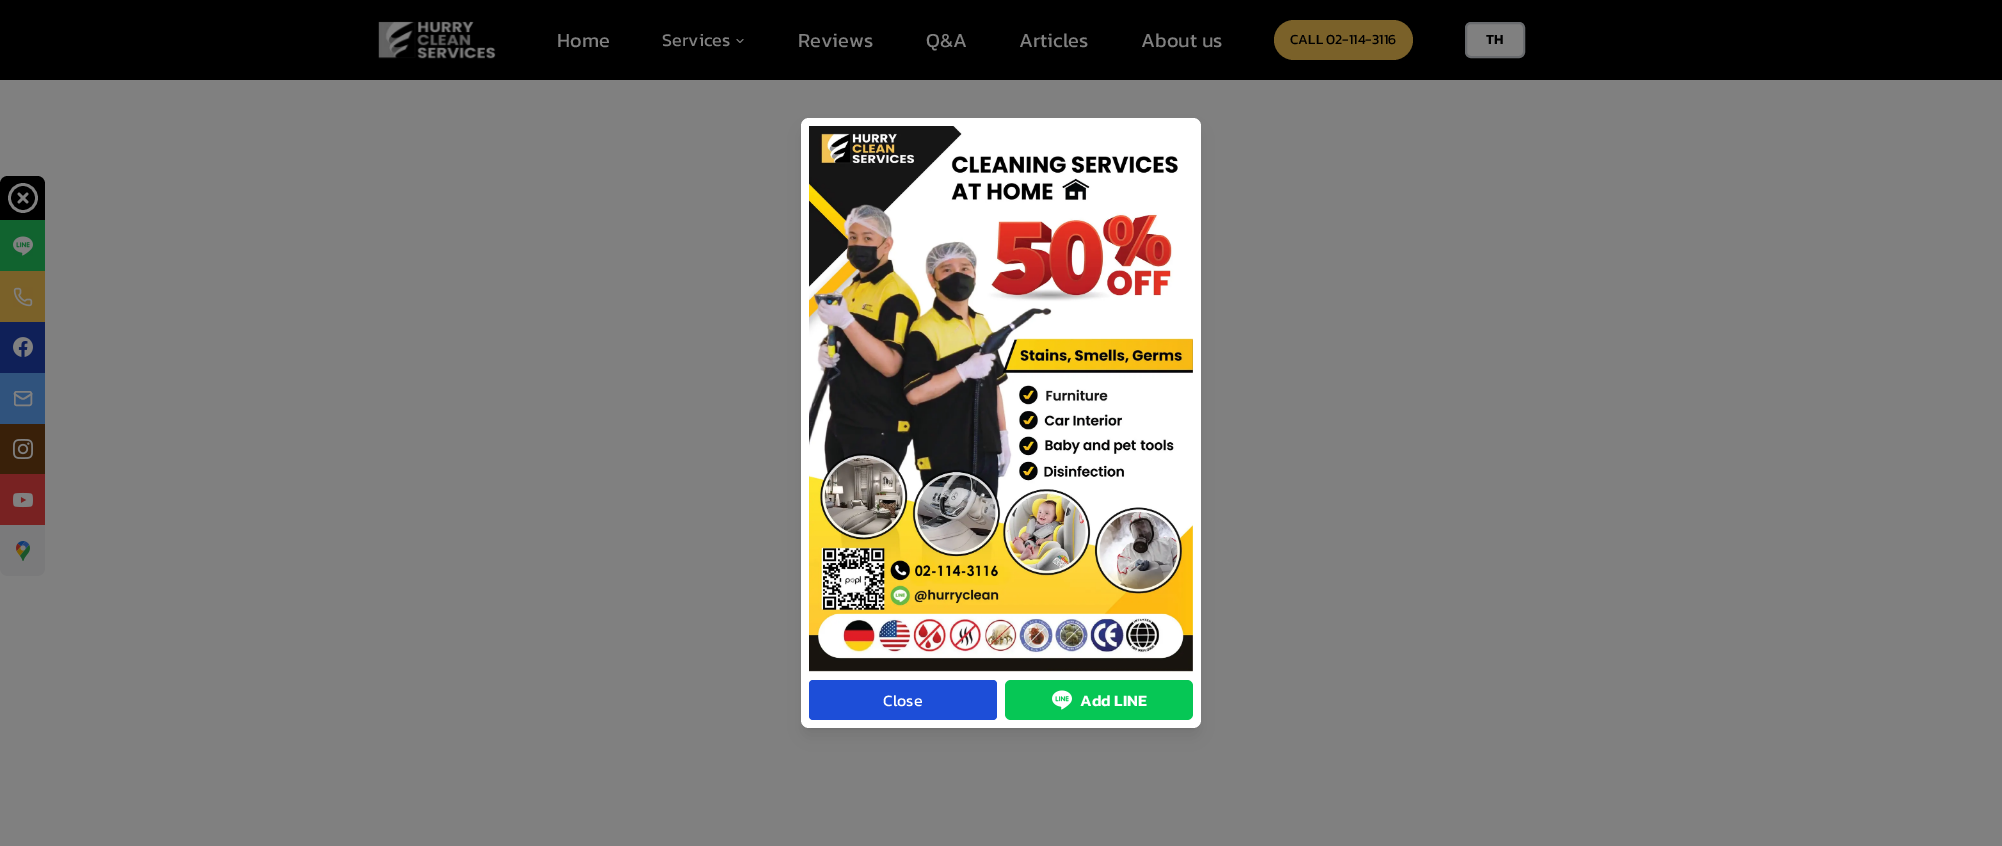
%!PS-Adobe-3.0
%%BoundingBox: 0 0 2002 846
%%LanguageLevel: 3
%%Pages: 1
%%EndComments
%%BeginProlog
/setalpha { dup .setfillconstantalpha .setstrokeconstantalpha } def
/rrect { 5 dict begin { /r /h /w /y /x } { exch def } forall
  x r add y moveto x w add y 2 copy h add r arct x w add y h add x 1 index r arct
  x y h add x y r arct x y 2 copy exch w add exch r arct closepath end } def
/softshadow { 12 dict begin { /a /b /q /h /w /y /x } { exch def } forall gsave /was 0 def
  9 -2 -9 { dup b mul 4 div /e exch def 1 sub .425 mul 2.718 exch exp 1 add a .99 .min exch div /now exch def
    1 1 now sub 1 was sub div sub setalpha /was now def
    w h .min e 2 mul add 0 gt { x e sub y e sub w e 2 mul add h e 2 mul add
      q e add b .6 mul add w h .min 2 div e add .min 0 .max rrect fill } if } for grestore end } def
/drawimage { 5 dict begin { /h /w /y /x /name } { exch def } forall
  gsave x y translate w h scale
  w h 8 [w 0 0 h 0 0] name (r) file false 3 colorimage grestore end } def
%%EndProlog
%%BeginSetup
<< /PageSize [2002 846] /PageUsesTransparency true >> setpagedevice
%%EndSetup
%%Page: 1 1
0 .pushpdf14devicefilter
0 846 translate 1 -1 scale
4 setmiterlimit
0.502 setgray
0 0 2002 846 rectfill
0 setgray
0 0 2002 80 rectfill
(images/1.raw) 378 21 118 38 drawimage
0.502 setgray
1 setlinecap
1 setlinejoin
newpath 737 39.5 moveto 740 42.5 lineto 743 39.5 lineto stroke
0.478 0.38 0.161 setrgbcolor
1274 20 139 40 20 rrect fill
0.502 setgray
1466 23 58 34 5 rrect gsave fill grestore
0.412 0.42 0.431 setrgbcolor
2 setlinewidth
0 setlinecap
0 setlinejoin
stroke
0 setgray
newpath 8 176 moveto 37 176 lineto 41.5 176 45 179.5 45 184 curveto 45 220 lineto 0 220 lineto 0 184 lineto 0 179.5 3.5 176 8 176 curveto closepath fill
0.502 setgray
2.7 setlinewidth
newpath 23 198 13.5 0 360 arc closepath stroke
1 setlinecap
1 setlinejoin
newpath 27 194 moveto 19 202 lineto 19 194 moveto 27 202 lineto stroke
0.067 0.388 0.184 setrgbcolor
0 220 45 51 rectfill
(images/2.raw) 13 236 20 20 drawimage
0.478 0.38 0.161 setrgbcolor
0 271 45 51 rectfill
(images/3.raw) 13 287 20 20 drawimage
0.059 0.125 0.345 setrgbcolor
0 322 45 51 rectfill
(images/4.raw) 13 337 20 20 drawimage
0.188 0.325 0.49 setrgbcolor
0 373 45 51 rectfill
0.502 setgray
1.7 setlinewidth
newpath 31.5 394 moveto 21 400.5 25 400.5 14.5 394 curveto stroke
1.5 setlinewidth
0 setlinecap
0 setlinejoin
14.75 391.75 16.5 13.5 1.75 rrect stroke
0.224 0.125 0.035 setrgbcolor
0 424 45 50 rectfill
(images/5.raw) 13 439 20 20 drawimage
0.471 0.133 0.133 setrgbcolor
0 474 45 51 rectfill
(images/6.raw) 13 492 20 16 drawimage
0.478 0.478 0.482 setrgbcolor
newpath 0 525 moveto 45 525 lineto 45 568 lineto 45 572.5 41.5 576 37 576 curveto 8 576 lineto 3.5 576 0 572.5 0 568 curveto closepath fill
(images/7.raw) 16 541 14 20 drawimage
0 setgray
805 126 392 602 4 3 0.1 softshadow
804 131 394 604 5 7.5 0.1 softshadow
1 setgray
801 118 400 610 8 rrect fill
(images/8.raw) 809 126 384 546 drawimage
0.114 0.306 0.847 setrgbcolor
809 680 188 40 4 rrect fill
0.024 0.78 0.333 setrgbcolor
1005 680 188 40 6 rrect fill
(images/9.raw) 1052 690 20 20 drawimage
/Kanit-Regular [20 0 0 -20 0 0] selectfont
0.502 setgray
557 47 moveto (Home) show
/Kanit-Regular [18 0 0 -18 0 0] selectfont
662 46 moveto (Services) show
/Kanit-Regular [20 0 0 -20 0 0] selectfont
798 47 moveto (Reviews) show
926 47 moveto (Q&A) show
1019 47 moveto (Articles) show
1141 47 moveto (About us) show
/Kanit-Regular [14 0 0 -14 0 0] selectfont
0 setgray
1290 44 moveto (CALL 02-114-3116) show
/Kanit-SemiBold [14 0 0 -14 0 0] selectfont
1486 44 moveto (TH) show
/Kanit-Regular [16 0 0 -16 0 0] selectfont
1 setgray
883 706 moveto (Close) show
/Kanit-SemiBold [16 0 0 -16 0 0] selectfont
1080 706 moveto (Add LINE) show
.poppdf14devicefilter showpage
%%EOF
